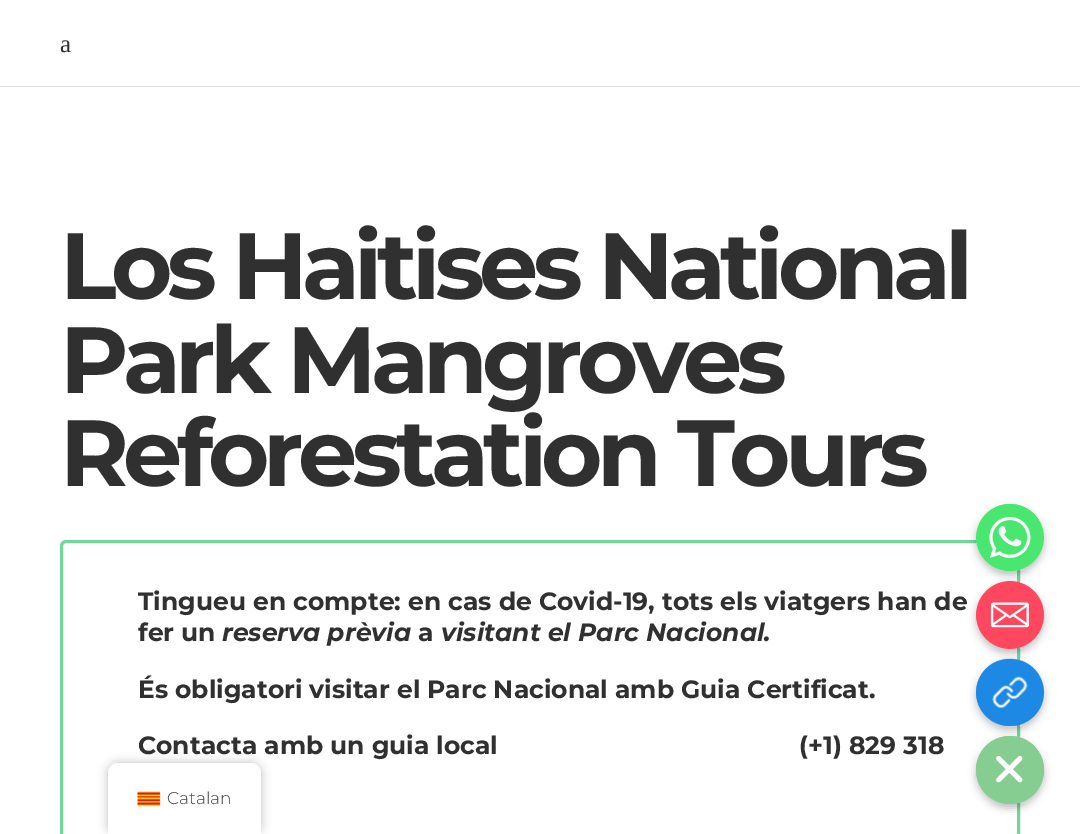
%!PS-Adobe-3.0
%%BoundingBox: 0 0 1080 834
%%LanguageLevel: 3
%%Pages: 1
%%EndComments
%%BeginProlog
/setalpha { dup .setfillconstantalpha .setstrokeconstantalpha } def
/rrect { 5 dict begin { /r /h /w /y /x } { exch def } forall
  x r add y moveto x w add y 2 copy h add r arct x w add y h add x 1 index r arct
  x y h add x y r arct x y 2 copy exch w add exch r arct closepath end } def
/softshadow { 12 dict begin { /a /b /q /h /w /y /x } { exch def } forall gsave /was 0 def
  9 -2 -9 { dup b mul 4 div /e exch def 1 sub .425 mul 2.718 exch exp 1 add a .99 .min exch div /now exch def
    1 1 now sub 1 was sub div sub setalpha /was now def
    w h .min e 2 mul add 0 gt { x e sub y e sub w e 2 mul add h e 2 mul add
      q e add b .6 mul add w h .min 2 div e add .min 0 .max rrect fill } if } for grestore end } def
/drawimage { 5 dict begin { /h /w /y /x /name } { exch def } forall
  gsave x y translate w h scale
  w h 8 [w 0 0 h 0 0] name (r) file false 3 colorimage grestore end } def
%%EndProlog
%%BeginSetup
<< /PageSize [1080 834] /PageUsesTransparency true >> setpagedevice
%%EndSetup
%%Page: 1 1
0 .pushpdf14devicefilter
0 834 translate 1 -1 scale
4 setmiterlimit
1 setgray
0 0 1080 834 rectfill
0.882 setgray
0 86 1080 1 rectfill
0.459 0.839 0.612 setrgbcolor
3 setlinewidth
61.5 541.5 957 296 4.5 rrect stroke
0 setgray
976 508 68 67 33.5 4 0.25 softshadow
0.286 0.902 0.439 setrgbcolor
976 504 68 67 33.5 rrect fill
(images/1.raw) 976 504 68 67 drawimage
0 setgray
976 585 68 68 34 4 0.25 softshadow
1 0.282 0.373 setrgbcolor
newpath 1010 615 34 0 360 arc closepath fill
(images/2.raw) 976 581 68 68 drawimage
0 setgray
976 663 68 67 33.5 4 0.25 softshadow
0.118 0.533 0.898 setrgbcolor
976 659 68 67 33.5 rrect fill
(images/3.raw) 976 658 69 69 drawimage
0 setgray
976 740 68 68 34 4 0.25 softshadow
0.525 0.804 0.569 setrgbcolor
newpath 1010 804 moveto 991 804 976 789 976 770 curveto 976 751 991 736 1010 736 curveto 1029 736 1044 751 1044 770 curveto 1044 789 1029 804 1010 804 curveto closepath fill
(images/4.raw) 976 736 68 68 drawimage
0 setgray
108 763 153 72 10 5 0.25 softshadow
1 setgray
newpath 118 763 moveto 251 763 lineto 256.5 763 261 767.5 261 773 curveto 261 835 lineto 108 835 lineto 108 773 lineto 108 767.5 112.5 763 118 763 curveto closepath fill
(images/5.raw) 137 791 24 16 drawimage
/LiberationSerif-Regular [25 0 0 -25 0 0] selectfont
0.188 setgray
60 52 moveto (a) show
/Montserrat-Bold [93.75 0 0 -93.75 0 0] selectfont
60 299 moveto -5.6 0 (Los Haitises National) ashow
60 393 moveto -5.6 0 (Park Mangroves) ashow
60 486 moveto -5.6 0 (Reforestation Tours) ashow
/Montserrat-Bold [25 0 0 -25 0 0] selectfont
138 610 moveto (Tingueu en compte: en cas de Covid-19, tots els viatgers han de) show
138 641 moveto (fer un) show
/Montserrat-ThinItalic [25 0 0 -25 0 0] selectfont
222 641 moveto (reserva prèvia) show
/Montserrat-Bold [25 0 0 -25 0 0] selectfont
418 641 moveto (a) show
/Montserrat-ThinItalic [25 0 0 -25 0 0] selectfont
441 641 moveto (visitant el Parc Nacional.) show
/Montserrat-Bold [25 0 0 -25 0 0] selectfont
138 698 moveto (És obligatori visitar el Parc Nacional amb Guia Certificat.) show
138 754 moveto (Contacta amb un guia local) show
799 754 moveto (\(+1\) 829 318) show
/Montserrat-Light [17 0 0 -17 0 0] selectfont
0.251 setgray
167 804 moveto (Catalan) show
.poppdf14devicefilter showpage
%%EOF
